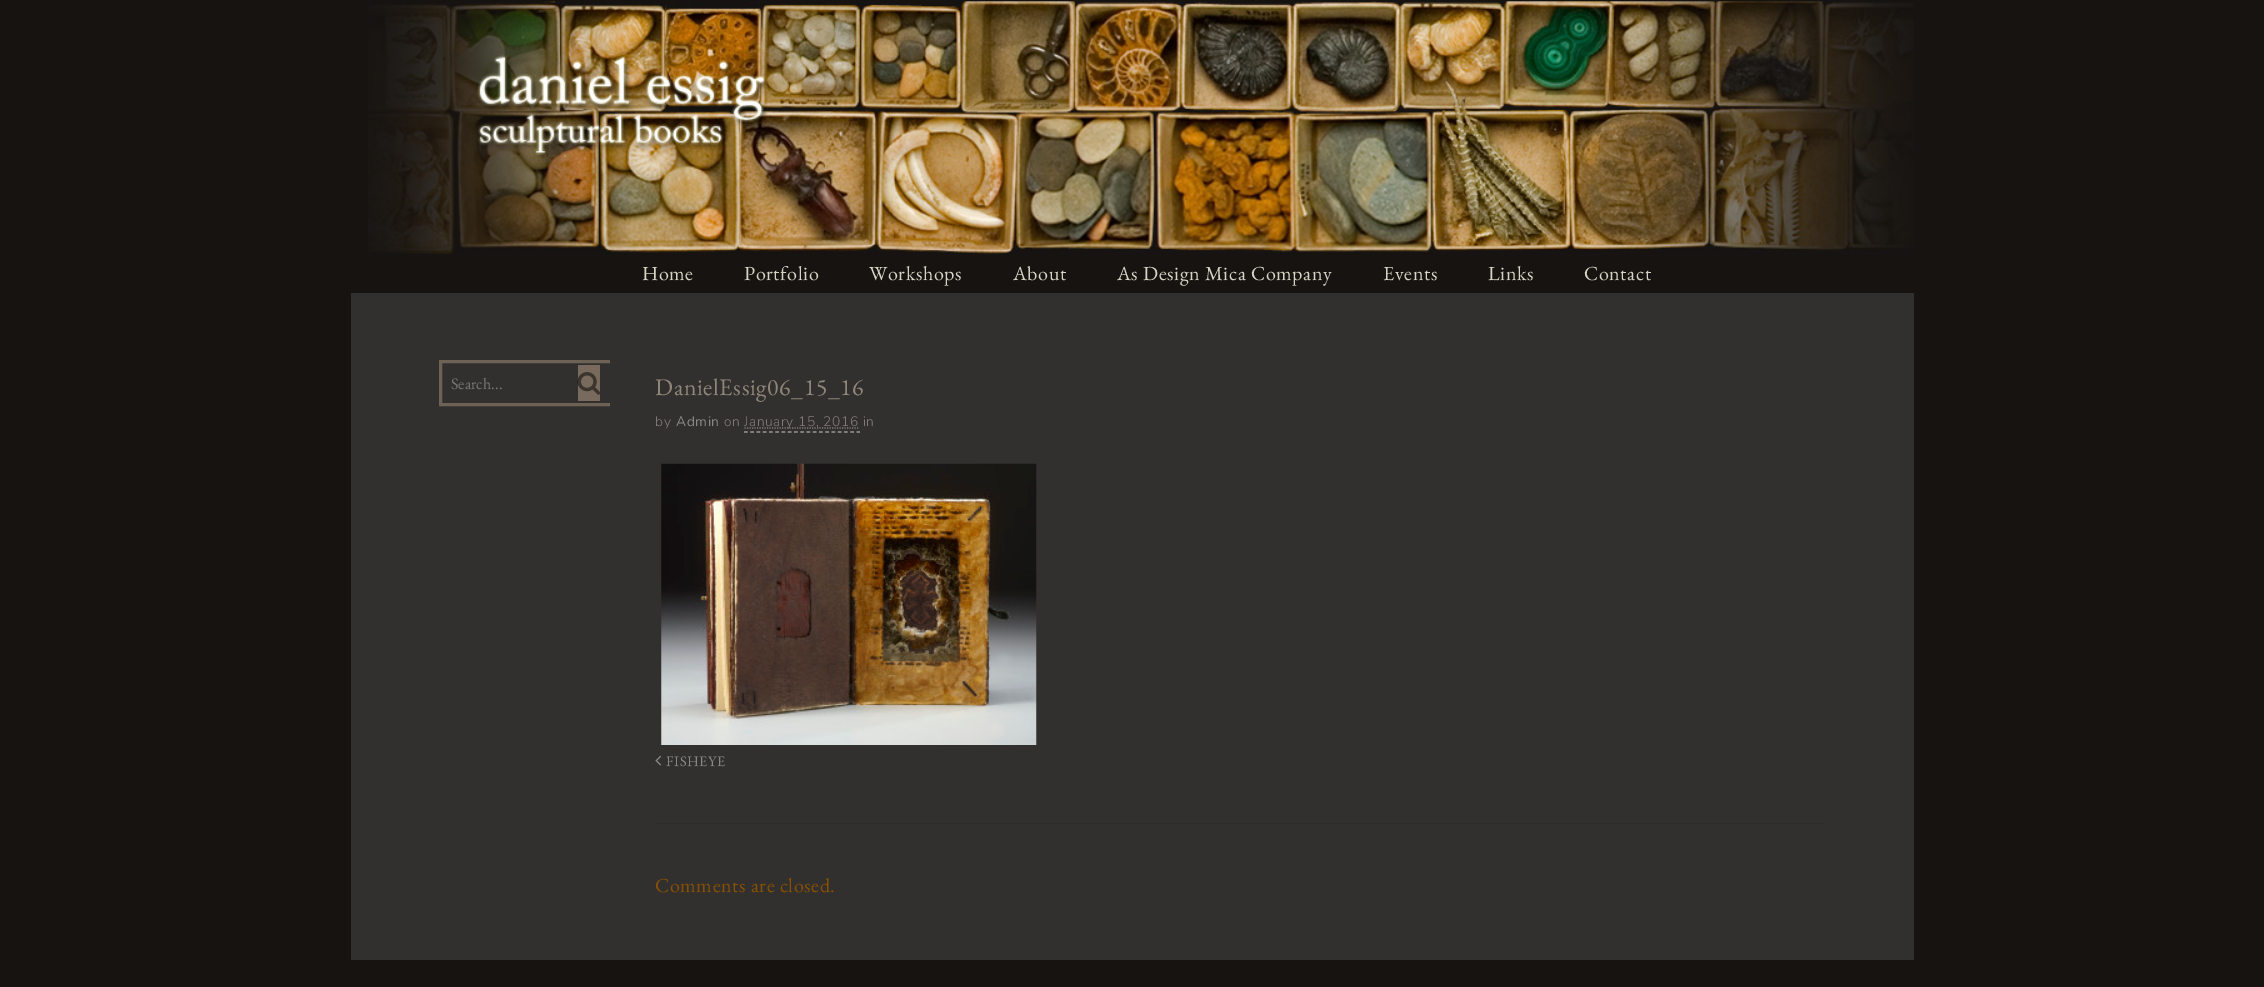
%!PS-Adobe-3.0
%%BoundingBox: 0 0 2264 987
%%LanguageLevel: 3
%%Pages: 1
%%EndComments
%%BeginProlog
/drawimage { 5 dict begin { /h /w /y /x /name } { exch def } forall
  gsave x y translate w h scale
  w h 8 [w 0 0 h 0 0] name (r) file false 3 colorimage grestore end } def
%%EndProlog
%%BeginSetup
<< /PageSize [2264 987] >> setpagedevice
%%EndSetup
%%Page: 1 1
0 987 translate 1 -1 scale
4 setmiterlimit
0.086 0.075 0.067 setrgbcolor
0 0 2264 987 rectfill
0.196 0.188 0.18 setrgbcolor
351 293 1563 667 rectfill
(images/1.raw) 368 0 1546 255 drawimage
gsave
439 354 171 115 rectclip
0.431 0.38 0.333 setrgbcolor
3 setlinewidth
440.5 361.5 173 43 rectstroke
grestore
0.471 0.42 0.365 setrgbcolor
578 365 22 36 rectfill
(images/2.raw) 577 372 23 23 drawimage
0.6 setgray
1.2 setlinewidth
[3.75 2.5] 0 setdash
newpath 744 432 moveto 860 432 lineto stroke
0.506 0.482 0.482 setrgbcolor
[1.25 1.25] 0 setdash
newpath 744.5 428 moveto 859.5 428 lineto stroke
(images/3.raw) 661 463 376 282 drawimage
(images/4.raw) 655 755 6 11 drawimage
0.184 0.176 0.169 setrgbcolor
655 823 1171 1 rectfill
/EBGaramond-Regular [20 0 0 -20 0 0] selectfont
0.843 0.839 0.776 setrgbcolor
642 280 moveto 0.6 0 (Home) ashow
744 280 moveto 0.6 0 (Portfolio) ashow
869 280 moveto 0.6 0 (Workshops) ashow
1013 280 moveto 0.6 0 (About) ashow
1117 280 moveto 0.6 0 (As Design Mica Company) ashow
1383 280 moveto 0.6 0 (Events) ashow
1488 280 moveto 0.6 0 (Links) ashow
1584 280 moveto 0.6 0 (Contact) ashow
/EBGaramond-Regular [16 0 0 -16 0 0] selectfont
0.467 setgray
451 389 moveto (Search...) show
/EBGaramond-Regular [23.75 0 0 -23.75 0 0] selectfont
0.561 0.525 0.475 setrgbcolor
655 395 moveto 0.6 0 (DanielEssig06_15_16) ashow
/Nunito-Light [13.75 0 0 -13.75 0 0] selectfont
0.506 0.482 0.482 setrgbcolor
655 426 moveto 0.6 0 (by) ashow
/Nunito-Regular [13.75 0 0 -13.75 0 0] selectfont
0.533 setgray
676 426 moveto 0.6 0 (Admin) ashow
/Nunito-Light [13.75 0 0 -13.75 0 0] selectfont
0.506 0.482 0.482 setrgbcolor
724 426 moveto 0.6 0 (on) ashow
744 426 moveto 0.6 0 (January 15, 2016 in) ashow
/EBGaramond-Regular [14.5 0 0 -14.5 0 0] selectfont
0.533 setgray
666 766 moveto 0.6 0 (FISHEYE) ashow
/EBGaramond-Regular [20 0 0 -20 0 0] selectfont
0.537 0.314 0.012 setrgbcolor
655 892 moveto 0.6 0 (Comments are closed.) ashow
showpage
%%EOF
